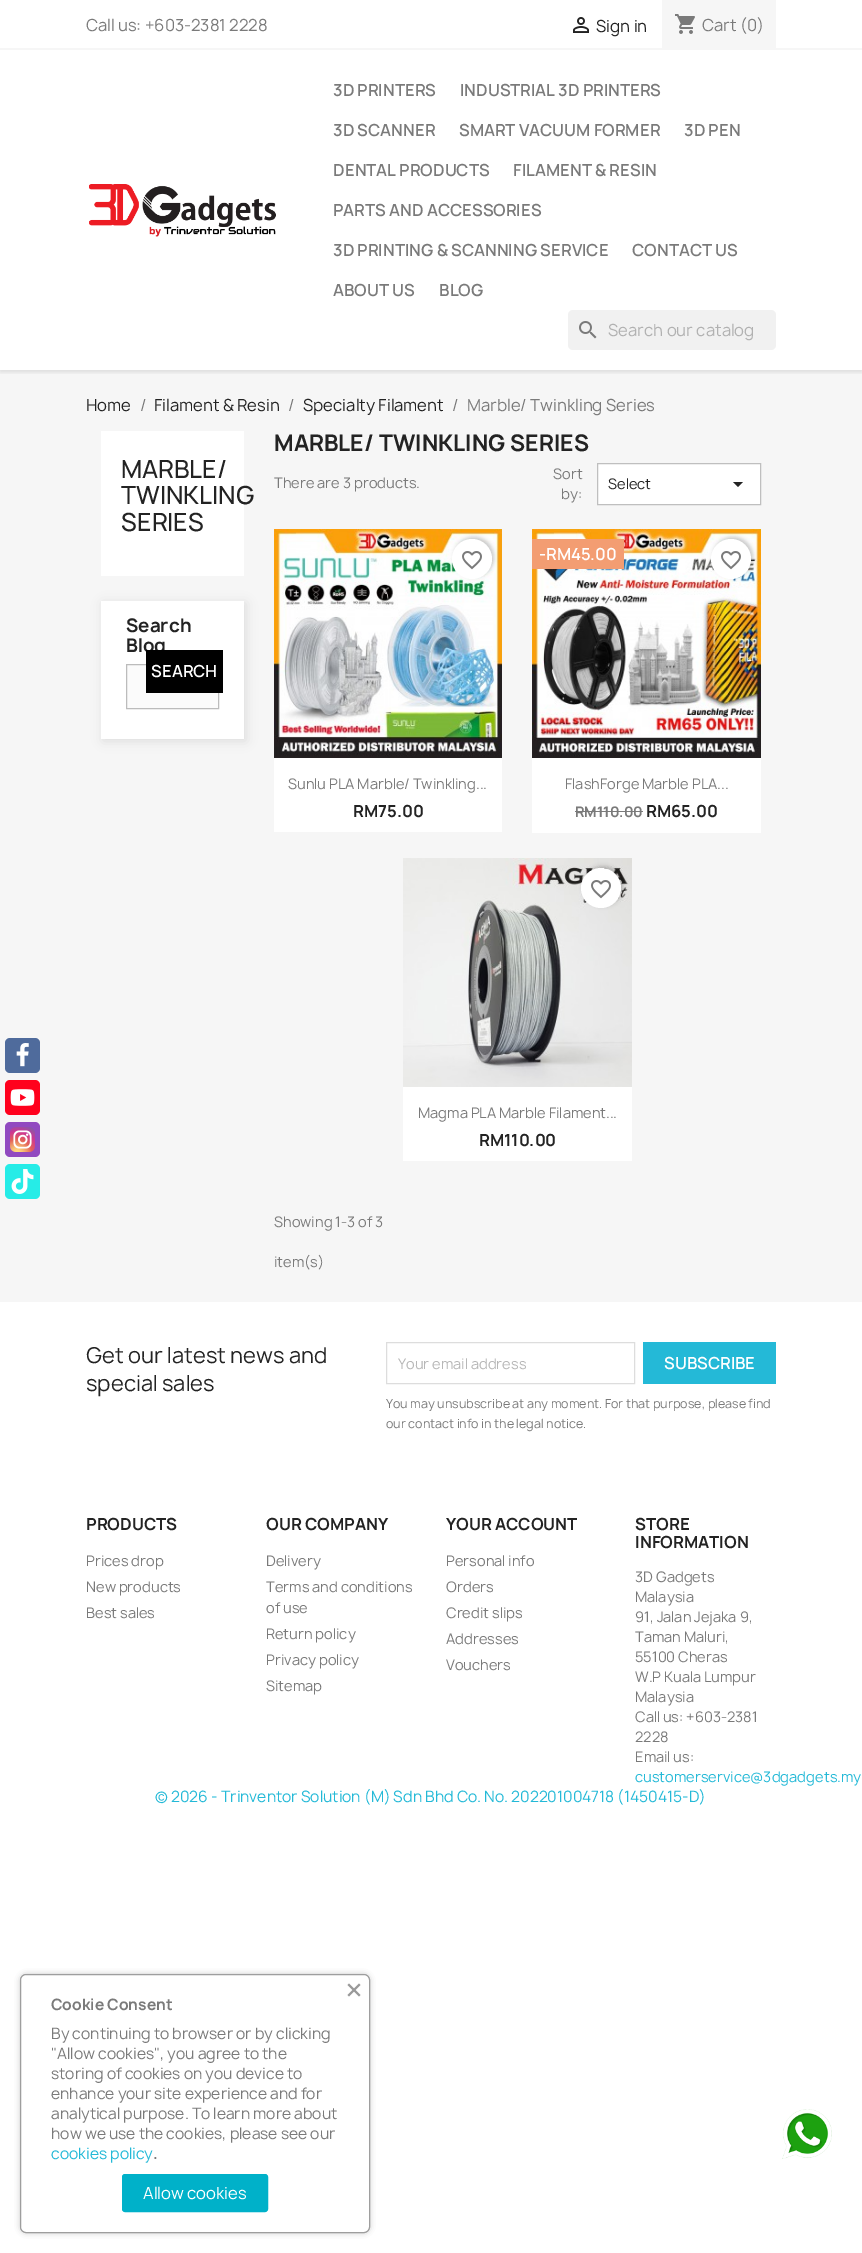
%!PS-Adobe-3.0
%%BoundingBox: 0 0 862 2253
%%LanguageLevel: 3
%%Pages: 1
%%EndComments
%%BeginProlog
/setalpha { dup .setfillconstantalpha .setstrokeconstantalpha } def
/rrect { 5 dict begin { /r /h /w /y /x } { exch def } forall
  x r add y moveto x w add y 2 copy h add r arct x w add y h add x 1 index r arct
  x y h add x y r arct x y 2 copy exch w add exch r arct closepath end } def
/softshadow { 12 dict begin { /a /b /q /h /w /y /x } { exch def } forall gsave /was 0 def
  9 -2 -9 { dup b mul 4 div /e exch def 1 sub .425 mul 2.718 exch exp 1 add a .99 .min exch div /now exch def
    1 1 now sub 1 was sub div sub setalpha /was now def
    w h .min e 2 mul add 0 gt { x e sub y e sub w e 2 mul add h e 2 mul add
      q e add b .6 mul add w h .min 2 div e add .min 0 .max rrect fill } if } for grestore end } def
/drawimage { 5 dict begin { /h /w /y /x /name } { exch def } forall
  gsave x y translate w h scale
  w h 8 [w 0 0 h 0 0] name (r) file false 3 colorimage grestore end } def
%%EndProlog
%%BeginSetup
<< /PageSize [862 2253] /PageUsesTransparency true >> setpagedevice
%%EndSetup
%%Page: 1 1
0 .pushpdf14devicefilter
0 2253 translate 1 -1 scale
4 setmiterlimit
1 setgray
0 0 862 2253 rectfill
0.965 setgray
0 370 862 932 rectfill
0.31 0.42 0.612 setrgbcolor
5 1038 35 35 5 rrect fill
(images/1.raw) 16 1043 13 24 drawimage
1 0.004 0.114 setrgbcolor
5 1080 35 35 5 rrect fill
(images/2.raw) 10 1089 25 17 drawimage
0.569 0.29 0.753 setrgbcolor
5 1122 35 35 5 rrect fill
(images/3.raw) 10 1127 25 25 drawimage
0.149 0.925 0.906 setrgbcolor
5 1164 35 35 5 rrect fill
(images/4.raw) 11 1169 23 25 drawimage
gsave
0 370 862 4 rectclip
0 setgray
0 2 862 370 0 2.5 0.11 softshadow
grestore
0.965 setgray
0 48 862 2 rectfill
(images/5.raw) 573 17 16 16 drawimage
662 0 114 48 rectfill
(images/6.raw) 675 14 20 20 drawimage
(images/7.raw) 89 184 187 53 drawimage
0.945 setgray
568 310 208 40 5 rrect fill
(images/8.raw) 579 321 18 18 drawimage
1 setgray
101 431 143 145 rectfill
0 setgray
103 603 143 138 0 5.5 0.1 softshadow
1 setgray
101 601 143 138 rectfill
0.984 setgray
newpath 126.5 664.5 moveto 218.5 664.5 lineto 218.5 708.5 lineto 126.5 708.5 lineto closepath gsave fill grestore
0.737 setgray
stroke
1 setgray
newpath 597.5 463.5 moveto 760.5 463.5 lineto 760.5 504.5 lineto 597.5 504.5 lineto closepath gsave fill grestore
0.749 setgray
stroke
0.137 setgray
newpath 733 482 moveto 743 482 lineto 738 487 lineto closepath fill
1 setgray
274 758 228 74 rectfill
(images/9.raw) 274 529 228 229 drawimage
0 setgray
454 537 40 40 20 2 0.2 softshadow
1 setgray
newpath 472 559 20 0 360 arc closepath fill
(images/10.raw) 462 551 20 19 drawimage
532 758 229 75 rectfill
(images/11.raw) 532 529 229 229 drawimage
0.953 0.616 0.447 setrgbcolor
532 539 92 30 rectfill
0 setgray
713 537 40 40 20 2 0.2 softshadow
1 setgray
newpath 731 559 20 0 360 arc closepath fill
(images/10.raw) 721 551 20 19 drawimage
0.478 setgray
575 811 68 1 rectfill
1 setgray
403 1087 229 74 rectfill
(images/12.raw) 403 858 229 229 drawimage
0 setgray
583 866 40 40 20 2 0.2 softshadow
1 setgray
newpath 601 888 20 0 360 arc closepath fill
(images/10.raw) 591 880 20 19 drawimage
0.867 setgray
386.5 1342.5 248 41 rectstroke
0.141 0.725 0.843 setrgbcolor
643 1342 133 42 rectfill
(images/13.raw) 782 2109 50 50 drawimage
0.62 setgray
22 1976 346 255 4 3.5 1 softshadow
1 setgray
20.5 1974.5 349 258 5.5 rrect gsave fill grestore
0.62 setgray
stroke
0.6 setgray
newpath 347.5 1995 moveto 359 1983.5 lineto 360.5 1985 lineto 349 1996.5 lineto closepath fill
newpath 349 1983.5 moveto 360.5 1995 lineto 359 1996.5 lineto 347.5 1985 lineto closepath fill
0 0.694 0.788 setrgbcolor
122.5 2174.5 145 37 2.5 rrect gsave fill grestore
stroke
/Manrope-Regular [16 0 0 -16 0 0] selectfont
0.478 setgray
86 31 moveto (Call us: +603-2381 2228) show
0.137 setgray
596 32 moveto (Sign in) show
0.478 setgray
702 31 moveto (Cart \(0\)) show
/Manrope-SemiBold [16 0 0 -16 0 0] selectfont
333 96 moveto (3D PRINTERS) show
460 96 moveto (INDUSTRIAL 3D PRINTERS) show
333 136 moveto (3D SCANNER) show
459 136 moveto (SMART VACUUM FORMER) show
684 136 moveto (3D PEN) show
333 176 moveto (DENTAL PRODUCTS) show
513 176 moveto (FILAMENT & RESIN) show
333 216 moveto (PARTS AND ACCESSORIES) show
333 256 moveto (3D PRINTING & SCANNING SERVICE) show
632 256 moveto (CONTACT US) show
333 296 moveto (ABOUT US) show
439 296 moveto (BLOG) show
/Manrope-Regular [16 0 0 -16 0 0] selectfont
0.694 setgray
608 336 moveto (Search our catalog) show
0.137 setgray
86 411 moveto (Home) show
0.478 setgray
140 411 moveto (/) show
0.137 setgray
154 411 moveto (Filament & Resin) show
0.478 setgray
288 411 moveto (/) show
0.137 setgray
303 411 moveto (Specialty Filament) show
0.478 setgray
452 411 moveto (/) show
467 411 moveto (Marble/ Twinkling Series) show
/Manrope-Medium [24 0 0 -24 0 0] selectfont
0.137 setgray
121 478 moveto (MARBLE/) show
121 504 moveto (TWINKLING) show
121 531 moveto (SERIES) show
/Manrope-Bold [18 0 0 -18 0 0] selectfont
126 632 moveto (Search) show
126 652 moveto (Blog) show
0 setgray
146 650 77 43 rectfill
/Manrope-SemiBold [16 0 0 -16 0 0] selectfont
1 setgray
151 677 moveto (SEARCH) show
/Manrope-Bold [22 0 0 -22 0 0] selectfont
0.137 setgray
274 451 moveto (MARBLE/ TWINKLING SERIES) show
/Manrope-Regular [14 0 0 -14 0 0] selectfont
0.478 setgray
274 488 moveto (There are 3 products.) show
553 479 moveto (Sort) show
561 499 moveto (by:) show
0.137 setgray
608 489 moveto (Select) show
0.478 setgray
288 789 moveto (Sunlu PLA Marble/ Twinkling...) show
/Manrope-Bold [16 0 0 -16 0 0] selectfont
0.137 setgray
353 817 moveto (RM75.00) show
/Manrope-SemiBold [16 0 0 -16 0 0] selectfont
1 setgray
539 560 moveto (-RM45.00) show
/Manrope-Regular [14 0 0 -14 0 0] selectfont
0.478 setgray
565 789 moveto (FlashForge Marble PLA...) show
/Manrope-Bold [14 0 0 -14 0 0] selectfont
575 817 moveto (RM110.00) show
/Manrope-Bold [16 0 0 -16 0 0] selectfont
0.137 setgray
646 817 moveto (RM65.00) show
/Manrope-Regular [14 0 0 -14 0 0] selectfont
0.478 setgray
418 1118 moveto (Magma PLA Marble Filament...) show
/Manrope-Bold [16 0 0 -16 0 0] selectfont
0.137 setgray
479 1146 moveto (RM110.00) show
/Manrope-Regular [14 0 0 -14 0 0] selectfont
0.478 setgray
274 1227 moveto (Showing 1-3 of 3) show
274 1267 moveto (item\(s\)) show
/Manrope-Regular [21 0 0 -21 0 0] selectfont
0.137 setgray
86 1363 moveto (Get our latest news and) show
86 1391 moveto (special sales) show
/Manrope-Regular [14 0 0 -14 0 0] selectfont
0.718 setgray
398 1369 moveto (Your email address) show
/Manrope-SemiBold [16 0 0 -16 0 0] selectfont
1 setgray
664 1369 moveto (SUBSCRIBE) show
/Manrope-Regular [12 0 0 -12 0 0] selectfont
0.478 setgray
386 1408 moveto (You may unsubscribe at any moment. For that purpose, please find) show
386 1428 moveto (our contact info in the legal notice.) show
/Manrope-Bold [16 0 0 -16 0 0] selectfont
0.137 setgray
86 1530 moveto (PRODUCTS) show
/Manrope-Regular [14 0 0 -14 0 0] selectfont
0.478 setgray
86 1566 moveto (Prices drop) show
86 1592 moveto (New products) show
86 1618 moveto (Best sales) show
/Manrope-Bold [16 0 0 -16 0 0] selectfont
0.137 setgray
266 1530 moveto (OUR COMPANY) show
/Manrope-Regular [14 0 0 -14 0 0] selectfont
0.478 setgray
266 1566 moveto (Delivery) show
266 1592 moveto (Terms and conditions) show
266 1613 moveto (of use) show
266 1639 moveto (Return policy) show
266 1665 moveto (Privacy policy) show
266 1691 moveto (Sitemap) show
/Manrope-Bold [16 0 0 -16 0 0] selectfont
0.137 setgray
446 1530 moveto (YOUR ACCOUNT) show
/Manrope-Regular [14 0 0 -14 0 0] selectfont
0.478 setgray
446 1566 moveto (Personal info) show
446 1592 moveto (Orders) show
446 1618 moveto (Credit slips) show
446 1644 moveto (Addresses) show
446 1670 moveto (Vouchers) show
/Manrope-Bold [16 0 0 -16 0 0] selectfont
0.137 setgray
635 1530 moveto (STORE) show
635 1548 moveto (INFORMATION) show
/Manrope-Regular [14 0 0 -14 0 0] selectfont
0.478 setgray
635 1582 moveto (3D Gadgets) show
635 1602 moveto (Malaysia) show
635 1622 moveto (91, Jalan Jejaka 9,) show
635 1642 moveto (Taman Maluri,) show
635 1662 moveto (55100 Cheras) show
635 1682 moveto (W.P Kuala Lumpur) show
635 1702 moveto (Malaysia) show
635 1722 moveto (Call us: +603-2381) show
635 1742 moveto (2228) show
635 1762 moveto (Email us:) show
0.141 0.725 0.843 setrgbcolor
635 1782 moveto (customerservice@3dgadgets.my) show
/Manrope-Regular [15 0 0 -15 0 0] selectfont
155 1802 moveto (© 2026 - Trinventor Solution \(M\) Sdn Bhd Co. No. 202201004718 \(1450415-D\)) show
/Manrope-Bold [15 0 0 -15 0 0] selectfont
0.478 setgray
51 2010 moveto (Cookie Consent) show
/Manrope-Regular [15 0 0 -15 0 0] selectfont
51 2039 moveto (By continuing to browser or by clicking) show
51 2059 moveto ("Allow cookies", you agree to the) show
51 2079 moveto (storing of cookies on you device to) show
51 2099 moveto (enhance your site experience and for) show
51 2119 moveto (analytical purpose. To learn more about) show
51 2139 moveto (how we use the cookies, please see our) show
0.141 0.725 0.843 setrgbcolor
51 2159 moveto (cookies policy) show
/Manrope-Bold [15 0 0 -15 0 0] selectfont
0.478 setgray
153 2159 moveto (.) show
/Manrope-Regular [16 0 0 -16 0 0] selectfont
1 setgray
143 2199 moveto (Allow cookies) show
.poppdf14devicefilter showpage
%%EOF
